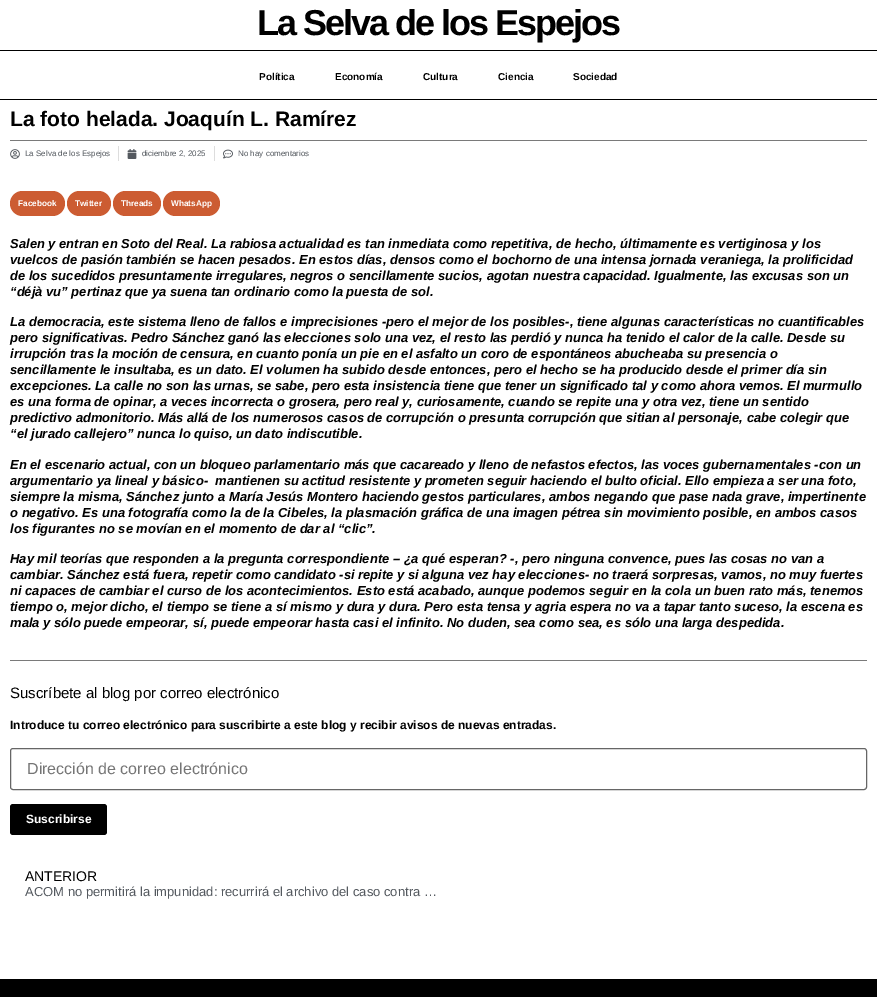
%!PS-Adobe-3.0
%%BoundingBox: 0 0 877 997
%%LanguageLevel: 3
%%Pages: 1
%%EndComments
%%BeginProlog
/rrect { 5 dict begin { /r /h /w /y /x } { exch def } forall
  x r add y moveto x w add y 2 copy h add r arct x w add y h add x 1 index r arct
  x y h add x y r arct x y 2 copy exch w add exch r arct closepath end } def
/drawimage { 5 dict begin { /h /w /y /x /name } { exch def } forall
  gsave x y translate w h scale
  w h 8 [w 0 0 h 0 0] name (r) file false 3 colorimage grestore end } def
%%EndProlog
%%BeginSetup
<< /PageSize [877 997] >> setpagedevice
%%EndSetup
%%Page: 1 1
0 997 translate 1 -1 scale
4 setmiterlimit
1 setgray
0 0 877 997 rectfill
0 setgray
0 50 877 1 rectfill
0 99 877 1 rectfill
0.478 setgray
10 140 857 1 rectfill
(images/1.raw) 10 149 10 10 drawimage
0.867 setgray
118 146 1 15 rectfill
(images/2.raw) 127 149 10 10 drawimage
214 146 1 15 rectfill
(images/3.raw) 223 149 10 10 drawimage
0.8 0.361 0.196 setrgbcolor
10 191 55 25 12.5 rrect fill
67 191 44 25 12.5 rrect fill
113 191 48 25 12.5 rrect fill
163 191 57 25 12.5 rrect fill
0.478 setgray
10 660 857 1 rectfill
0.4 setgray
10.5 748.5 856 41 2.5 rrect stroke
0 setgray
10 804 97 31 3 rrect fill
0 979 877 18 rectfill
/LiberationSans-Bold [36 0 0 -36 0 0] selectfont
257 35 moveto -2 0 (La Selva de los Espejos) ashow
/LiberationSans-Bold [10 0 0 -10 0 0] selectfont
259 80 moveto (Política) show
335 80 moveto (Economía) show
423 80 moveto (Cultura) show
498 80 moveto (Ciencia) show
573 80 moveto (Sociedad) show
/LiberationSans-Bold [21 0 0 -21 0 0] selectfont
10 126 moveto (La foto helada. Joaquín L. Ramírez) show
/LiberationSans-Regular [8 0 0 -8 0 0] selectfont
0.329 0.349 0.373 setrgbcolor
25 156 moveto (La Selva de los Espejos) show
142 156 moveto (diciembre 2, 2025) show
238 156 moveto (No hay comentarios) show
/LiberationSans-Bold [8.25 0 0 -8.25 0 0] selectfont
1 setgray
18 206 moveto (Facebook) show
75 206 moveto (Twitter) show
121 206 moveto (Threads) show
171 206 moveto (WhatsApp) show
/LiberationSans-BoldItalic [13 0 0 -13 0 0] selectfont
0 setgray
10 248 moveto (Salen y entran en Soto del Real. La rabiosa actualidad es tan inmediata como repetitiva, de hecho, últimamente es vertiginosa y los) show
10 264 moveto (vuelcos de pasión también se hacen pesados. En estos días, densos como el bochorno de una intensa jornada veraniega, la prolificidad) show
10 280 moveto (de los sucedidos presuntamente irregulares, negros o sencillamente sucios, agotan nuestra capacidad. Igualmente, las excusas son un) show
10 296 moveto (“déjà vu” pertinaz que ya suena tan ordinario como la puesta de sol.) show
10 326 moveto (La democracia, este sistema lleno de fallos e imprecisiones -pero el mejor de los posibles-, tiene algunas características no cuantificables) show
10 342 moveto (pero significativas. Pedro Sánchez ganó las elecciones solo una vez, el resto las perdió y nunca ha tenido el calor de la calle. Desde su) show
10 358 moveto (irrupción tras la moción de censura, en cuanto ponía un pie en el asfalto un coro de espontáneos abucheaba su presencia o) show
10 374 moveto (sencillamente le insultaba, es un dato. El volumen ha subido desde entonces, pero el hecho se ha producido desde el primer día sin) show
10 390 moveto (excepciones. La calle no son las urnas, se sabe, pero esta insistencia tiene que tener un significado tal y como ahora vemos. El murmullo) show
10 406 moveto (es una forma de opinar, a veces incorrecta o grosera, pero real y, curiosamente, cuando se repite una y otra vez, tiene un sentido) show
10 422 moveto (predictivo admonitorio. Más allá de los numerosos casos de corrupción o presunta corrupción que sitian al personaje, cabe colegir que) show
10 438 moveto (“el jurado callejero” nunca lo quiso, un dato indiscutible.) show
10 469 moveto (En el escenario actual, con un bloqueo parlamentario más que cacareado y lleno de nefastos efectos, las voces gubernamentales -con un) show
10 485 moveto (argumentario ya lineal y básico-  mantienen su actitud resistente y prometen seguir haciendo el bulto oficial. Ello empieza a ser una foto,) show
10 501 moveto (siempre la misma, Sánchez junto a María Jesús Montero haciendo gestos particulares, ambos negando que pase nada grave, impertinente) show
10 517 moveto (o negativo. Es una fotografía como la de la Cibeles, la plasmación gráfica de una imagen pétrea sin movimiento posible, en ambos casos) show
10 533 moveto (los figurantes no se movían en el momento de dar al “clic”.) show
10 563 moveto (Hay mil teorías que responden a la pregunta correspondiente – ¿a qué esperan? -, pero ninguna convence, pues las cosas no van a) show
10 579 moveto (cambiar. Sánchez está fuera, repetir como candidato -si repite y si alguna vez hay elecciones- no traerá sorpresas, vamos, no muy fuertes) show
10 595 moveto (ni capaces de cambiar el curso de los acontecimientos. Esto está acabado, aunque podemos seguir en la cola un buen rato más, tenemos) show
10 611 moveto (tiempo o, mejor dicho, el tiempo se tiene a sí mismo y dura y dura. Pero esta tensa y agria espera no va a tapar tanto suceso, la escena es) show
10 627 moveto (mala y sólo puede empeorar, sí, puede empeorar hasta casi el infinito. No duden, sea como sea, es sólo una larga despedida.) show
/LiberationSans-Regular [15 0 0 -15 0 0] selectfont
10 698 moveto (Suscríbete al blog por correo electrónico) show
/LiberationSans-Bold [12 0 0 -12 0 0] selectfont
10 729 moveto (Introduce tu correo electrónico para suscribirte a este blog y recibir avisos de nuevas entradas.) show
/LiberationSans-Regular [16 0 0 -16 0 0] selectfont
0.459 setgray
27 774 moveto (Dirección de correo electrónico) show
/LiberationSans-Bold [12 0 0 -12 0 0] selectfont
1 setgray
26 823 moveto (Suscribirse) show
/LiberationSans-Regular [14 0 0 -14 0 0] selectfont
0 setgray
25 881 moveto (ANTERIOR) show
/LiberationSans-Regular [13 0 0 -13 0 0] selectfont
0.329 0.349 0.373 setrgbcolor
25 896 moveto (ACOM no permitirá la impunidad: recurrirá el archivo del caso contra …) show
showpage
%%EOF
